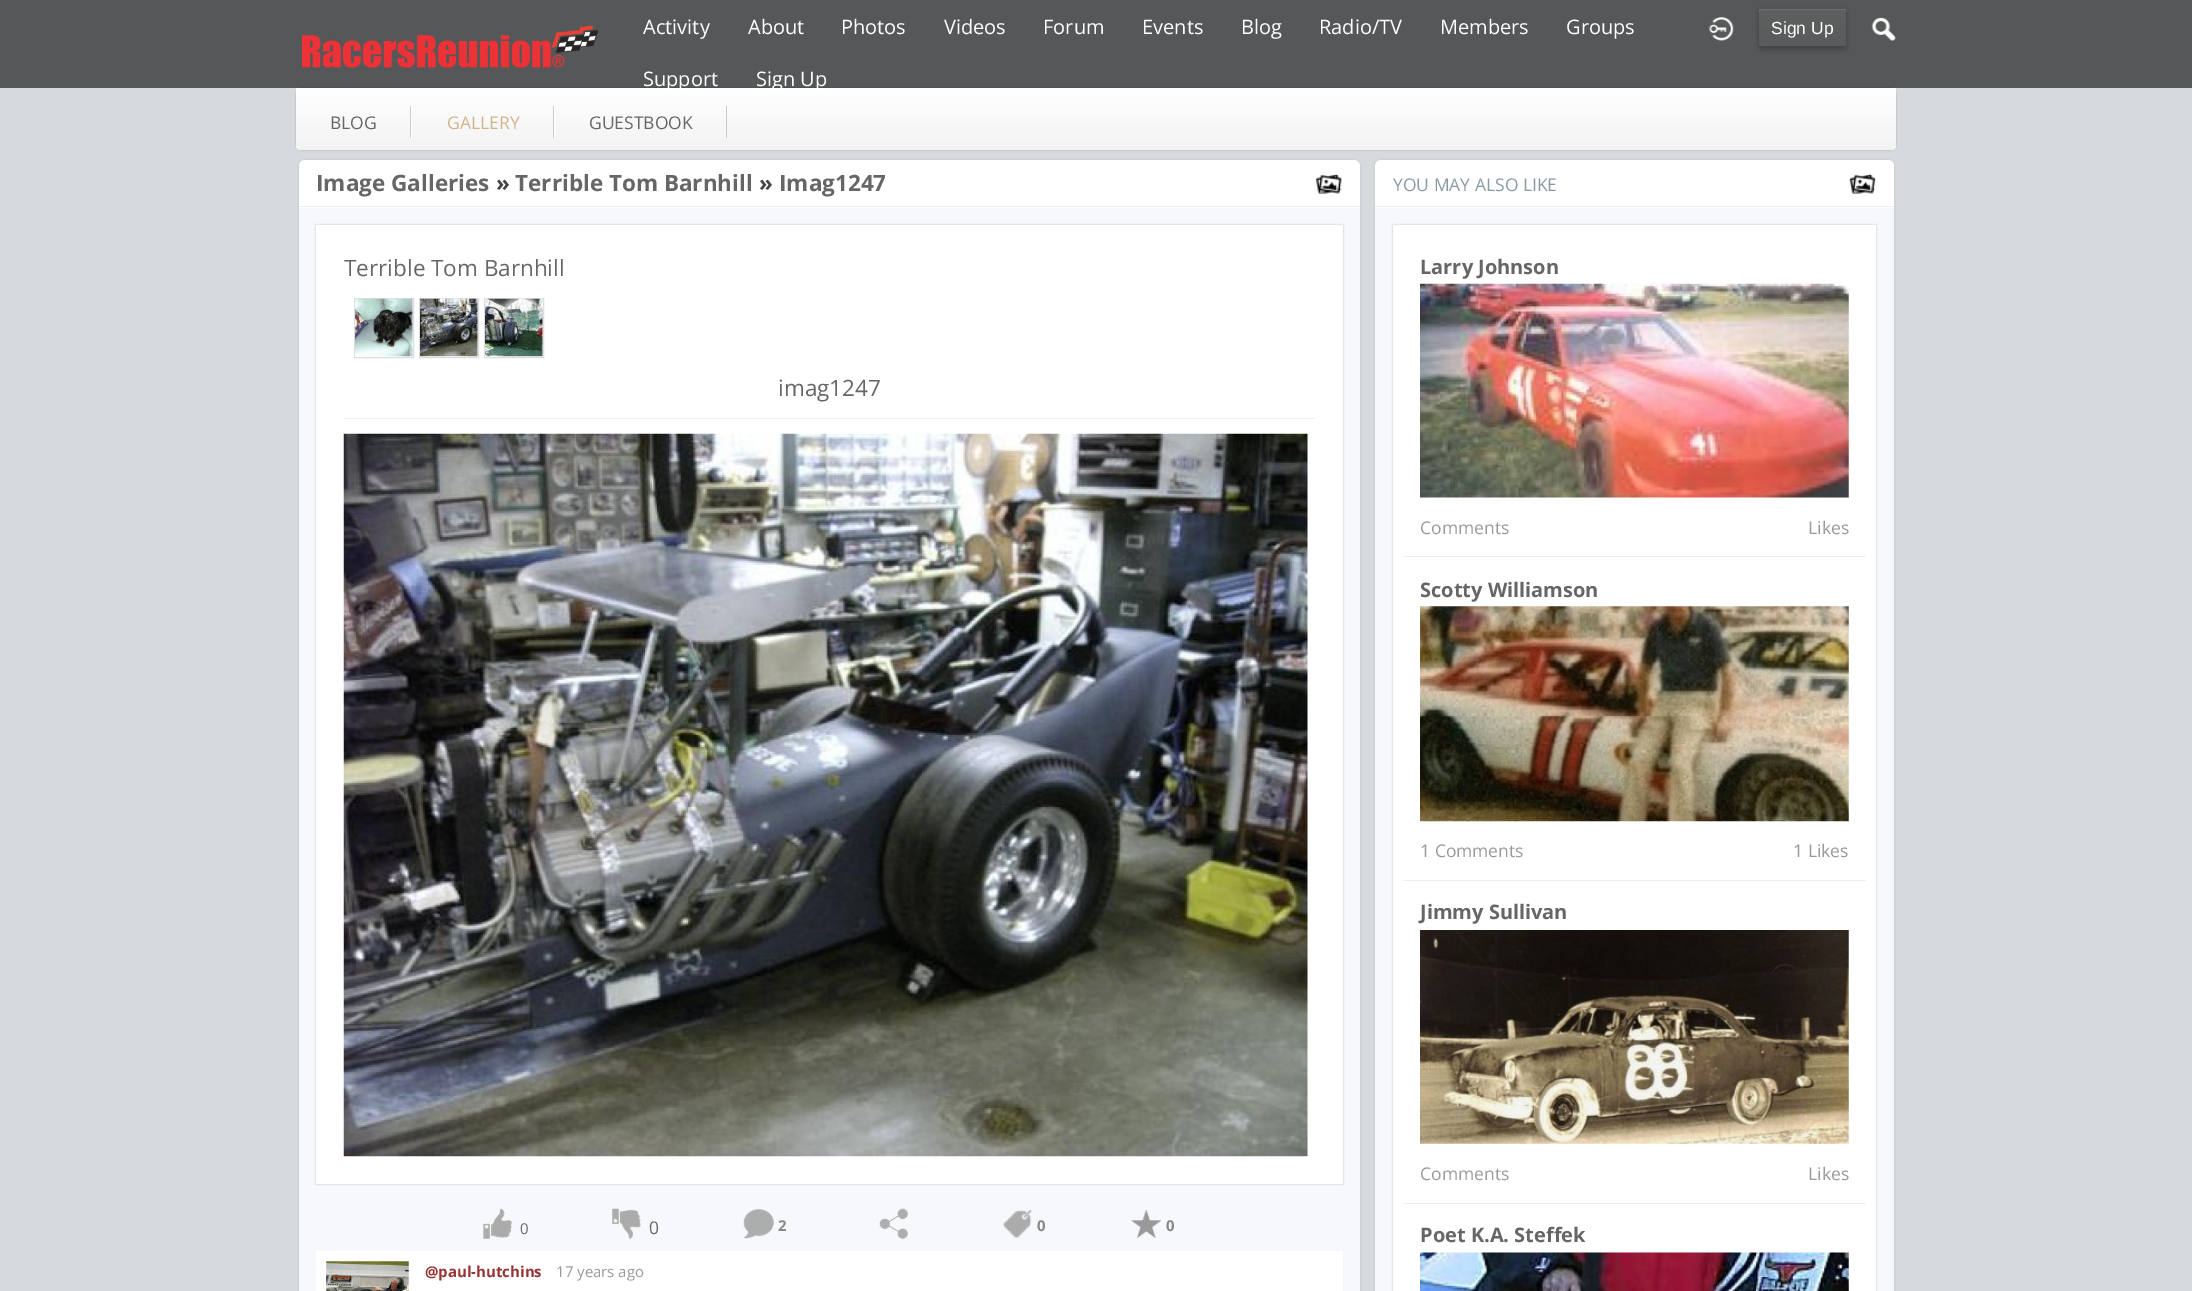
%!PS-Adobe-3.0
%%BoundingBox: 0 0 2192 1291
%%LanguageLevel: 3
%%Pages: 1
%%EndComments
%%BeginProlog
/setalpha { dup .setfillconstantalpha .setstrokeconstantalpha } def
/rrect { 5 dict begin { /r /h /w /y /x } { exch def } forall
  x r add y moveto x w add y 2 copy h add r arct x w add y h add x 1 index r arct
  x y h add x y r arct x y 2 copy exch w add exch r arct closepath end } def
/softshadow { 12 dict begin { /a /b /q /h /w /y /x } { exch def } forall gsave /was 0 def
  9 -2 -9 { dup b mul 4 div /e exch def 1 sub .425 mul 2.718 exch exp 1 add a .99 .min exch div /now exch def
    1 1 now sub 1 was sub div sub setalpha /was now def
    w h .min e 2 mul add 0 gt { x e sub y e sub w e 2 mul add h e 2 mul add
      q e add b .6 mul add w h .min 2 div e add .min 0 .max rrect fill } if } for grestore end } def
/drawimage { 5 dict begin { /h /w /y /x /name } { exch def } forall
  gsave x y translate w h scale
  w h 8 [w 0 0 h 0 0] name (r) file false 3 colorimage grestore end } def
%%EndProlog
%%BeginSetup
<< /PageSize [2192 1291] /PageUsesTransparency true >> setpagedevice
%%EndSetup
%%Page: 1 1
0 .pushpdf14devicefilter
0 1291 translate 1 -1 scale
4 setmiterlimit
0.843 0.855 0.863 setrgbcolor
0 0 2192 1291 rectfill
0.667 setgray
296 88 1600 62 6 1 1 softshadow
0.6 setalpha
0 setgray
0 0 2192 88 rectfill
1 setalpha
(images/1.raw) 302 25 297 43 drawimage
(images/2.raw) 1708 17 26 24 drawimage
1759 11 87 38 2.5 2.5 0.25 softshadow
gsave 1759 9 87 37 2.5 rrect clip newpath
<< /ShadingType 2 /ColorSpace /DeviceRGB /Coords [1803 9 1803 46] /Extend [true true] /Function << /FunctionType 2 /Domain [0 1] /C0 [0.369 0.373 0.373] /C1 [0.353 0.357 0.361] /N 1 >> >> shfill grestore
0.431 0.435 0.435 setrgbcolor
newpath 1761 10 moveto 1844 10 lineto 1845 10 1846 11 1846 12 curveto 1846 11 1845 9 1844 9 curveto 1762 9 lineto 1760 9 1759 10 1759 12 curveto 1759 11 1760 10 1761 10 curveto closepath fill
(images/3.raw) 1871 17 25 24 drawimage
gsave newpath 296 88 moveto 1896 88 lineto 1896 144 lineto 1896 147.5 1893.5 150 1890 150 curveto 302 150 lineto 298.5 150 296 147.5 296 144 curveto closepath clip newpath
<< /ShadingType 2 /ColorSpace /DeviceRGB /Coords [1096 87 1096 150] /Extend [true true] /Function << /FunctionType 2 /Domain [0 1] /C0 [1 1 1] /C1 [0.953 0.953 0.953] /N 1 >> >> shfill grestore
0.8 setgray
410 106 1 32 rectfill
553 106 1 32 rectfill
1 setgray
411 106 1 32 rectfill
0.8 setgray
726 106 1 32 rectfill
1 setgray
554 106 1 32 rectfill
0.733 setgray
299 160 1061 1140 6 1 1 softshadow
1 setgray
299 160 1061 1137 6 rrect fill
0.933 setgray
299 206 1061 1 rectfill
(images/4.raw) 1316 173 26 21 drawimage
0.965 0.973 0.988 setrgbcolor
299 208 1061 1083 rectfill
0.733 setgray
316 225 1027 959 0 1 1 softshadow
1 setgray
316 225 1027 959 rectfill
0.867 setgray
354.5 298.5 59 59 rectstroke
(images/5.raw) 355 298 58 59 drawimage
419.5 298.5 59 59 rectstroke
(images/6.raw) 420 298 58 59 drawimage
484.5 298.5 59 59 rectstroke
(images/7.raw) 485 298 58 59 drawimage
0.933 setgray
344 418 971 1 rectfill
(images/8.raw) 343 433 965 724 drawimage
(images/9.raw) 483 1208 29 31 drawimage
(images/10.raw) 612 1208 29 31 drawimage
(images/11.raw) 743 1209 31 30 drawimage
(images/12.raw) 879 1208 29 31 drawimage
(images/13.raw) 1003 1209 29 29 drawimage
(images/14.raw) 1131 1209 31 29 drawimage
1 setgray
316 1251 1027 40 rectfill
(images/15.raw) 326 1261 83 30 drawimage
0.733 setgray
1375 160 519 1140 6 1 1 softshadow
1 setgray
1375 160 519 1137 6 rrect fill
0.933 setgray
1375 206 519 1 rectfill
(images/16.raw) 1849 173 27 21 drawimage
0.965 0.973 0.988 setrgbcolor
1375 208 519 1083 rectfill
0.733 setgray
1393 225 483 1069 0 1 1 softshadow
1 setgray
1393 225 483 1066 rectfill
0.933 setgray
1403 556 463 1 rectfill
(images/17.raw) 1420 283 429 215 drawimage
1403 880 463 1 rectfill
(images/18.raw) 1420 606 429 216 drawimage
1403 1203 463 1 rectfill
(images/19.raw) 1420 930 429 214 drawimage
(images/20.raw) 1420 1252 429 39 drawimage
/OpenSans-Regular [20 0 0 -20 0 0] selectfont
1 setgray
643 34 moveto (Activity) show
748 34 moveto (About) show
841 34 moveto (Photos) show
944 34 moveto (Videos) show
1043 34 moveto (Forum) show
1142 34 moveto (Events) show
1241 34 moveto (Blog) show
1319 34 moveto (Radio/TV) show
1440 34 moveto (Members) show
1566 34 moveto (Groups) show
/LiberationSans-Regular [17.5 0 0 -17.5 0 0] selectfont
1771 34 moveto (Sign Up) show
/OpenSans-Regular [20 0 0 -20 0 0] selectfont
643 86 moveto (Support) show
756 86 moveto (Sign Up) show
/OpenSans-Regular [17.5 0 0 -17.5 0 0] selectfont
0.4 setgray
330 129 moveto (BLOG) show
0.824 0.706 0.549 setrgbcolor
447 129 moveto (GALLERY) show
0.4 setgray
589 129 moveto (GUESTBOOK) show
/OpenSans-Bold [22.5 0 0 -22.5 0 0] selectfont
316 191 moveto (Image Galleries) show
0.267 setgray
496 191 moveto (») show
0.4 setgray
515 191 moveto (Terrible Tom Barnhill) show
0.267 setgray
759 191 moveto (») show
0.4 setgray
779 191 moveto (Imag1247) show
/OpenSans-Regular [22.5 0 0 -22.5 0 0] selectfont
344 276 moveto (Terrible Tom Barnhill) show
778 396 moveto (imag1247) show
/OpenSans-Regular [15 0 0 -15 0 0] selectfont
520 1234 moveto (0) show
/OpenSans-Regular [17.5 0 0 -17.5 0 0] selectfont
649 1234 moveto (0) show
/OpenSans-Bold [15 0 0 -15 0 0] selectfont
0.533 setgray
778 1231 moveto (2) show
1037 1231 moveto (0) show
1166 1231 moveto (0) show
0.6 0.2 0.2 setrgbcolor
425 1277 moveto (@paul-hutchins) show
/OpenSans-Regular [15 0 0 -15 0 0] selectfont
0.6 setgray
556 1277 moveto (17 years ago) show
/OpenSans-Regular [17.5 0 0 -17.5 0 0] selectfont
0.533 0.6 0.651 setrgbcolor
1393 191 moveto (YOU MAY ALSO LIKE) show
/OpenSans-Bold [20 0 0 -20 0 0] selectfont
0.4 setgray
1420 274 moveto (Larry Johnson) show
/OpenSans-Regular [17.5 0 0 -17.5 0 0] selectfont
0.6 setgray
1420 534 moveto (Comments) show
1808 534 moveto (Likes) show
/OpenSans-Bold [20 0 0 -20 0 0] selectfont
0.4 setgray
1420 597 moveto (Scotty Williamson) show
/OpenSans-Regular [17.5 0 0 -17.5 0 0] selectfont
0.6 setgray
1420 857 moveto (1 Comments) show
1793 857 moveto (1 Likes) show
/OpenSans-Bold [20 0 0 -20 0 0] selectfont
0.4 setgray
1420 919 moveto (Jimmy Sullivan) show
/OpenSans-Regular [17.5 0 0 -17.5 0 0] selectfont
0.6 setgray
1420 1180 moveto (Comments) show
1808 1180 moveto (Likes) show
/OpenSans-Bold [20 0 0 -20 0 0] selectfont
0.4 setgray
1420 1242 moveto (Poet K.A. Steffek) show
.poppdf14devicefilter showpage
%%EOF
